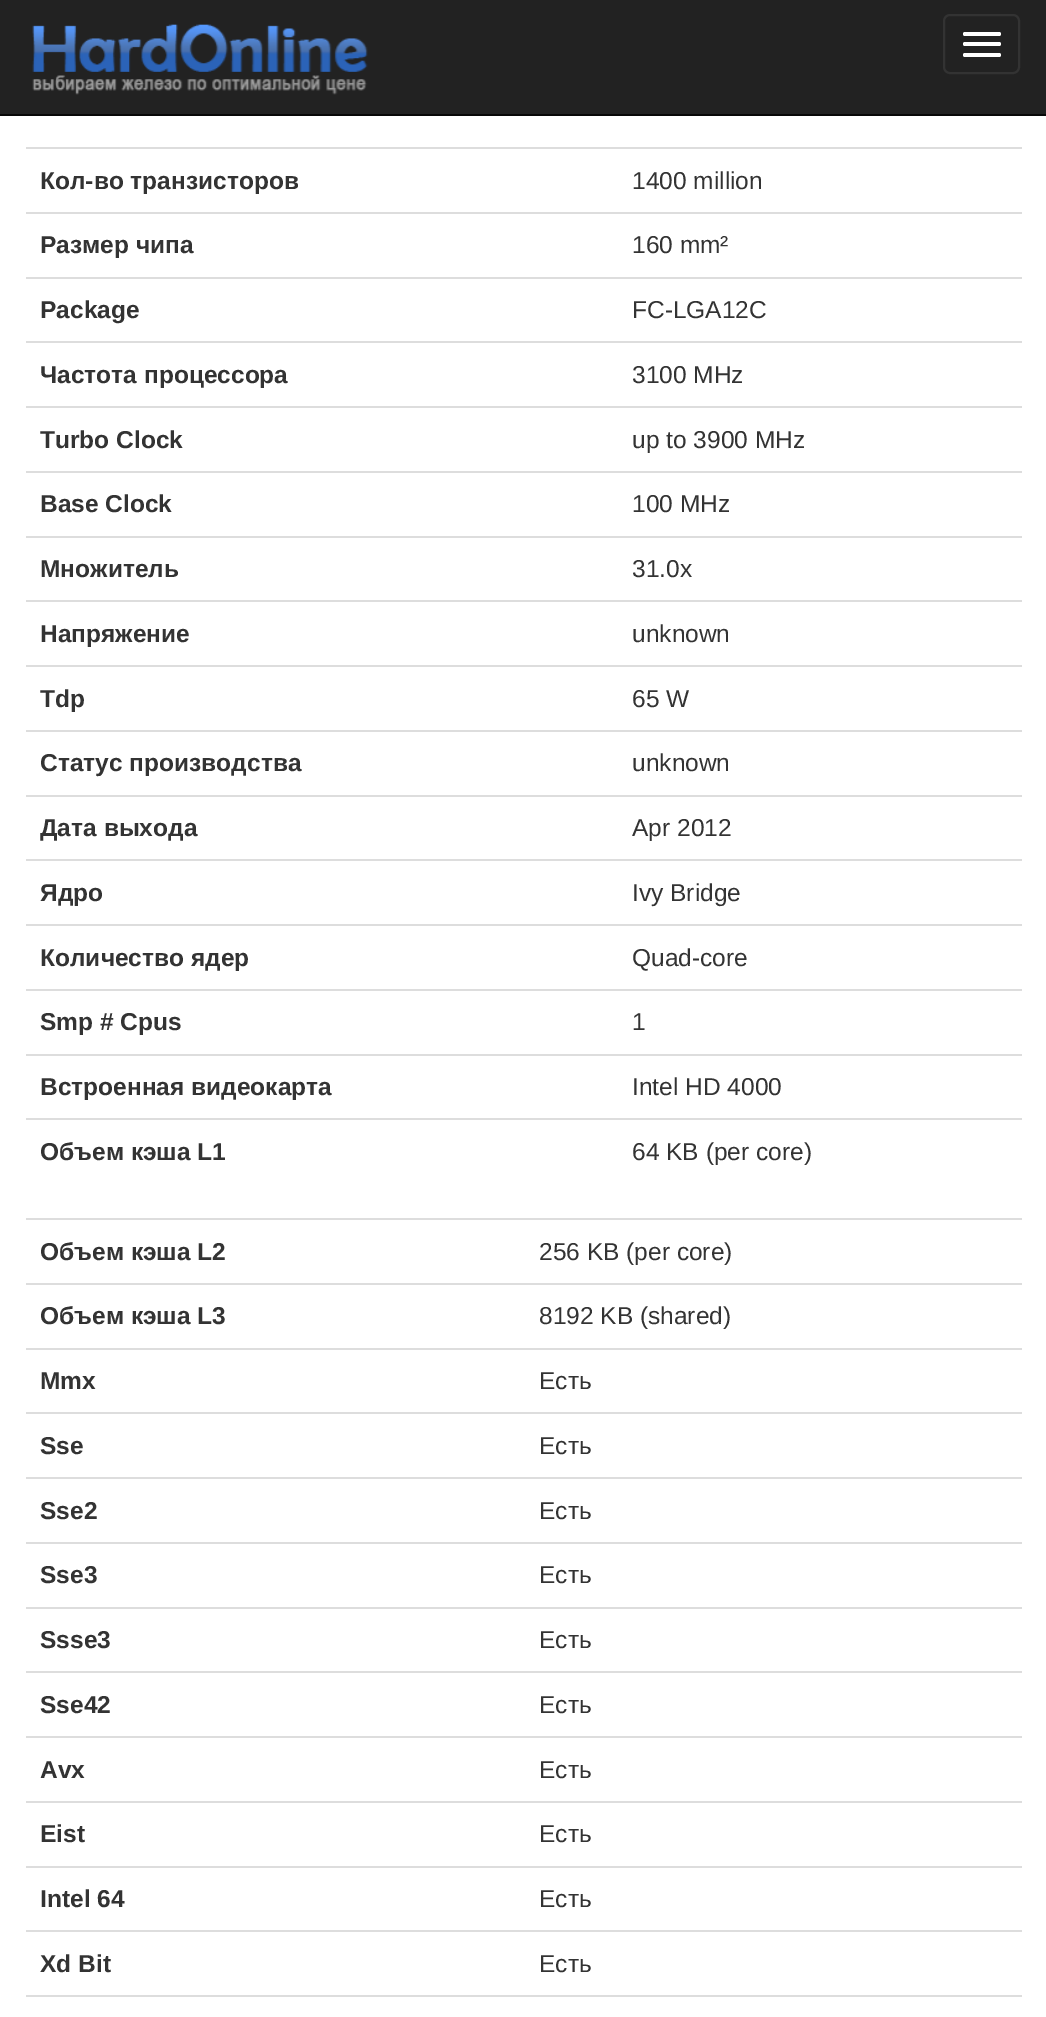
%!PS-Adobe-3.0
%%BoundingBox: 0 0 1046 2017
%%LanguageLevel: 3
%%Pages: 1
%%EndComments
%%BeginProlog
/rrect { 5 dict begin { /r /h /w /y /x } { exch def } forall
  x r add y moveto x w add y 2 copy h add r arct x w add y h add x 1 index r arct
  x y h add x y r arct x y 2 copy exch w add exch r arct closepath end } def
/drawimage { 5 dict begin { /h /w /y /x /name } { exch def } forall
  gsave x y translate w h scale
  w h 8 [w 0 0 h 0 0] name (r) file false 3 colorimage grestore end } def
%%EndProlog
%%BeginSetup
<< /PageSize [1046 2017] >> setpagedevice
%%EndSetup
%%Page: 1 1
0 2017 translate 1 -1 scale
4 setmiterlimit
1 setgray
0 0 1046 2017 rectfill
0.133 setgray
0 0 1046 114 rectfill
0.031 setgray
0 114 1046 2 rectfill
(images/1.raw) 32 24 336 71 drawimage
0.2 setgray
2 setlinewidth
944 15 75 58 6 rrect stroke
1 setgray
963 32 38 4 2 rrect fill
963 42 38 4 2 rrect fill
963 53 38 4 2 rrect fill
0.867 setgray
26 147 996 2 rectfill
26 212 996 2 rectfill
26 277 996 2 rectfill
26 341 996 2 rectfill
26 406 996 2 rectfill
26 471 996 2 rectfill
26 536 996 2 rectfill
26 600 996 2 rectfill
26 665 996 2 rectfill
26 730 996 2 rectfill
26 795 996 2 rectfill
26 859 996 2 rectfill
26 924 996 2 rectfill
26 989 996 2 rectfill
26 1054 996 2 rectfill
26 1118 996 2 rectfill
26 1218 996 2 rectfill
26 1283 996 2 rectfill
26 1348 996 2 rectfill
26 1412 996 2 rectfill
26 1477 996 2 rectfill
26 1542 996 2 rectfill
26 1607 996 2 rectfill
26 1671 996 2 rectfill
26 1736 996 2 rectfill
26 1801 996 2 rectfill
26 1866 996 2 rectfill
26 1930 996 2 rectfill
26 1995 996 2 rectfill
/LiberationSans-Bold [24.5 0 0 -24.5 0 0] selectfont
0.2 setgray
40 189 moveto (Кол-во транзисторов) show
/LiberationSans-Regular [24.5 0 0 -24.5 0 0] selectfont
632 189 moveto (1400 million) show
/LiberationSans-Bold [24.5 0 0 -24.5 0 0] selectfont
40 253 moveto (Размер чипа) show
/LiberationSans-Regular [24.5 0 0 -24.5 0 0] selectfont
632 253 moveto (160 mm²) show
/LiberationSans-Bold [24.5 0 0 -24.5 0 0] selectfont
40 318 moveto (Package) show
/LiberationSans-Regular [24.5 0 0 -24.5 0 0] selectfont
632 318 moveto (FC-LGA12C) show
/LiberationSans-Bold [24.5 0 0 -24.5 0 0] selectfont
40 383 moveto (Частота процессора) show
/LiberationSans-Regular [24.5 0 0 -24.5 0 0] selectfont
632 383 moveto (3100 MHz) show
/LiberationSans-Bold [24.5 0 0 -24.5 0 0] selectfont
40 448 moveto (Turbo Clock) show
/LiberationSans-Regular [24.5 0 0 -24.5 0 0] selectfont
632 448 moveto (up to 3900 MHz) show
/LiberationSans-Bold [24.5 0 0 -24.5 0 0] selectfont
40 512 moveto (Base Clock) show
/LiberationSans-Regular [24.5 0 0 -24.5 0 0] selectfont
632 512 moveto (100 MHz) show
/LiberationSans-Bold [24.5 0 0 -24.5 0 0] selectfont
40 577 moveto (Множитель) show
/LiberationSans-Regular [24.5 0 0 -24.5 0 0] selectfont
632 577 moveto (31.0x) show
/LiberationSans-Bold [24.5 0 0 -24.5 0 0] selectfont
40 642 moveto (Напряжение) show
/LiberationSans-Regular [24.5 0 0 -24.5 0 0] selectfont
632 642 moveto (unknown) show
/LiberationSans-Bold [24.5 0 0 -24.5 0 0] selectfont
40 707 moveto (Tdp) show
/LiberationSans-Regular [24.5 0 0 -24.5 0 0] selectfont
632 707 moveto (65 W) show
/LiberationSans-Bold [24.5 0 0 -24.5 0 0] selectfont
40 771 moveto (Статус производства) show
/LiberationSans-Regular [24.5 0 0 -24.5 0 0] selectfont
632 771 moveto (unknown) show
/LiberationSans-Bold [24.5 0 0 -24.5 0 0] selectfont
40 836 moveto (Дата выхода) show
/LiberationSans-Regular [24.5 0 0 -24.5 0 0] selectfont
632 836 moveto (Apr 2012) show
/LiberationSans-Bold [24.5 0 0 -24.5 0 0] selectfont
40 901 moveto (Ядро) show
/LiberationSans-Regular [24.5 0 0 -24.5 0 0] selectfont
632 901 moveto (Ivy Bridge) show
/LiberationSans-Bold [24.5 0 0 -24.5 0 0] selectfont
40 966 moveto (Количество ядер) show
/LiberationSans-Regular [24.5 0 0 -24.5 0 0] selectfont
632 966 moveto (Quad-core) show
/LiberationSans-Bold [24.5 0 0 -24.5 0 0] selectfont
40 1030 moveto (Smp # Cpus) show
/LiberationSans-Regular [24.5 0 0 -24.5 0 0] selectfont
632 1030 moveto (1) show
/LiberationSans-Bold [24.5 0 0 -24.5 0 0] selectfont
40 1095 moveto (Встроенная видеокарта) show
/LiberationSans-Regular [24.5 0 0 -24.5 0 0] selectfont
632 1095 moveto (Intel HD 4000) show
/LiberationSans-Bold [24.5 0 0 -24.5 0 0] selectfont
40 1160 moveto (Объем кэша L1) show
/LiberationSans-Regular [24.5 0 0 -24.5 0 0] selectfont
632 1160 moveto (64 KB \(per core\)) show
/LiberationSans-Bold [24.5 0 0 -24.5 0 0] selectfont
40 1260 moveto (Объем кэша L2) show
/LiberationSans-Regular [24.5 0 0 -24.5 0 0] selectfont
539 1260 moveto (256 KB \(per core\)) show
/LiberationSans-Bold [24.5 0 0 -24.5 0 0] selectfont
40 1324 moveto (Объем кэша L3) show
/LiberationSans-Regular [24.5 0 0 -24.5 0 0] selectfont
539 1324 moveto (8192 KB \(shared\)) show
/LiberationSans-Bold [24.5 0 0 -24.5 0 0] selectfont
40 1389 moveto (Mmx) show
/LiberationSans-Regular [24.5 0 0 -24.5 0 0] selectfont
539 1389 moveto (Есть) show
/LiberationSans-Bold [24.5 0 0 -24.5 0 0] selectfont
40 1454 moveto (Sse) show
/LiberationSans-Regular [24.5 0 0 -24.5 0 0] selectfont
539 1454 moveto (Есть) show
/LiberationSans-Bold [24.5 0 0 -24.5 0 0] selectfont
40 1519 moveto (Sse2) show
/LiberationSans-Regular [24.5 0 0 -24.5 0 0] selectfont
539 1519 moveto (Есть) show
/LiberationSans-Bold [24.5 0 0 -24.5 0 0] selectfont
40 1583 moveto (Sse3) show
/LiberationSans-Regular [24.5 0 0 -24.5 0 0] selectfont
539 1583 moveto (Есть) show
/LiberationSans-Bold [24.5 0 0 -24.5 0 0] selectfont
40 1648 moveto (Ssse3) show
/LiberationSans-Regular [24.5 0 0 -24.5 0 0] selectfont
539 1648 moveto (Есть) show
/LiberationSans-Bold [24.5 0 0 -24.5 0 0] selectfont
40 1713 moveto (Sse42) show
/LiberationSans-Regular [24.5 0 0 -24.5 0 0] selectfont
539 1713 moveto (Есть) show
/LiberationSans-Bold [24.5 0 0 -24.5 0 0] selectfont
40 1778 moveto (Avx) show
/LiberationSans-Regular [24.5 0 0 -24.5 0 0] selectfont
539 1778 moveto (Есть) show
/LiberationSans-Bold [24.5 0 0 -24.5 0 0] selectfont
40 1842 moveto (Eist) show
/LiberationSans-Regular [24.5 0 0 -24.5 0 0] selectfont
539 1842 moveto (Есть) show
/LiberationSans-Bold [24.5 0 0 -24.5 0 0] selectfont
40 1907 moveto (Intel 64) show
/LiberationSans-Regular [24.5 0 0 -24.5 0 0] selectfont
539 1907 moveto (Есть) show
/LiberationSans-Bold [24.5 0 0 -24.5 0 0] selectfont
40 1972 moveto (Xd Bit) show
/LiberationSans-Regular [24.5 0 0 -24.5 0 0] selectfont
539 1972 moveto (Есть) show
showpage
%%EOF
